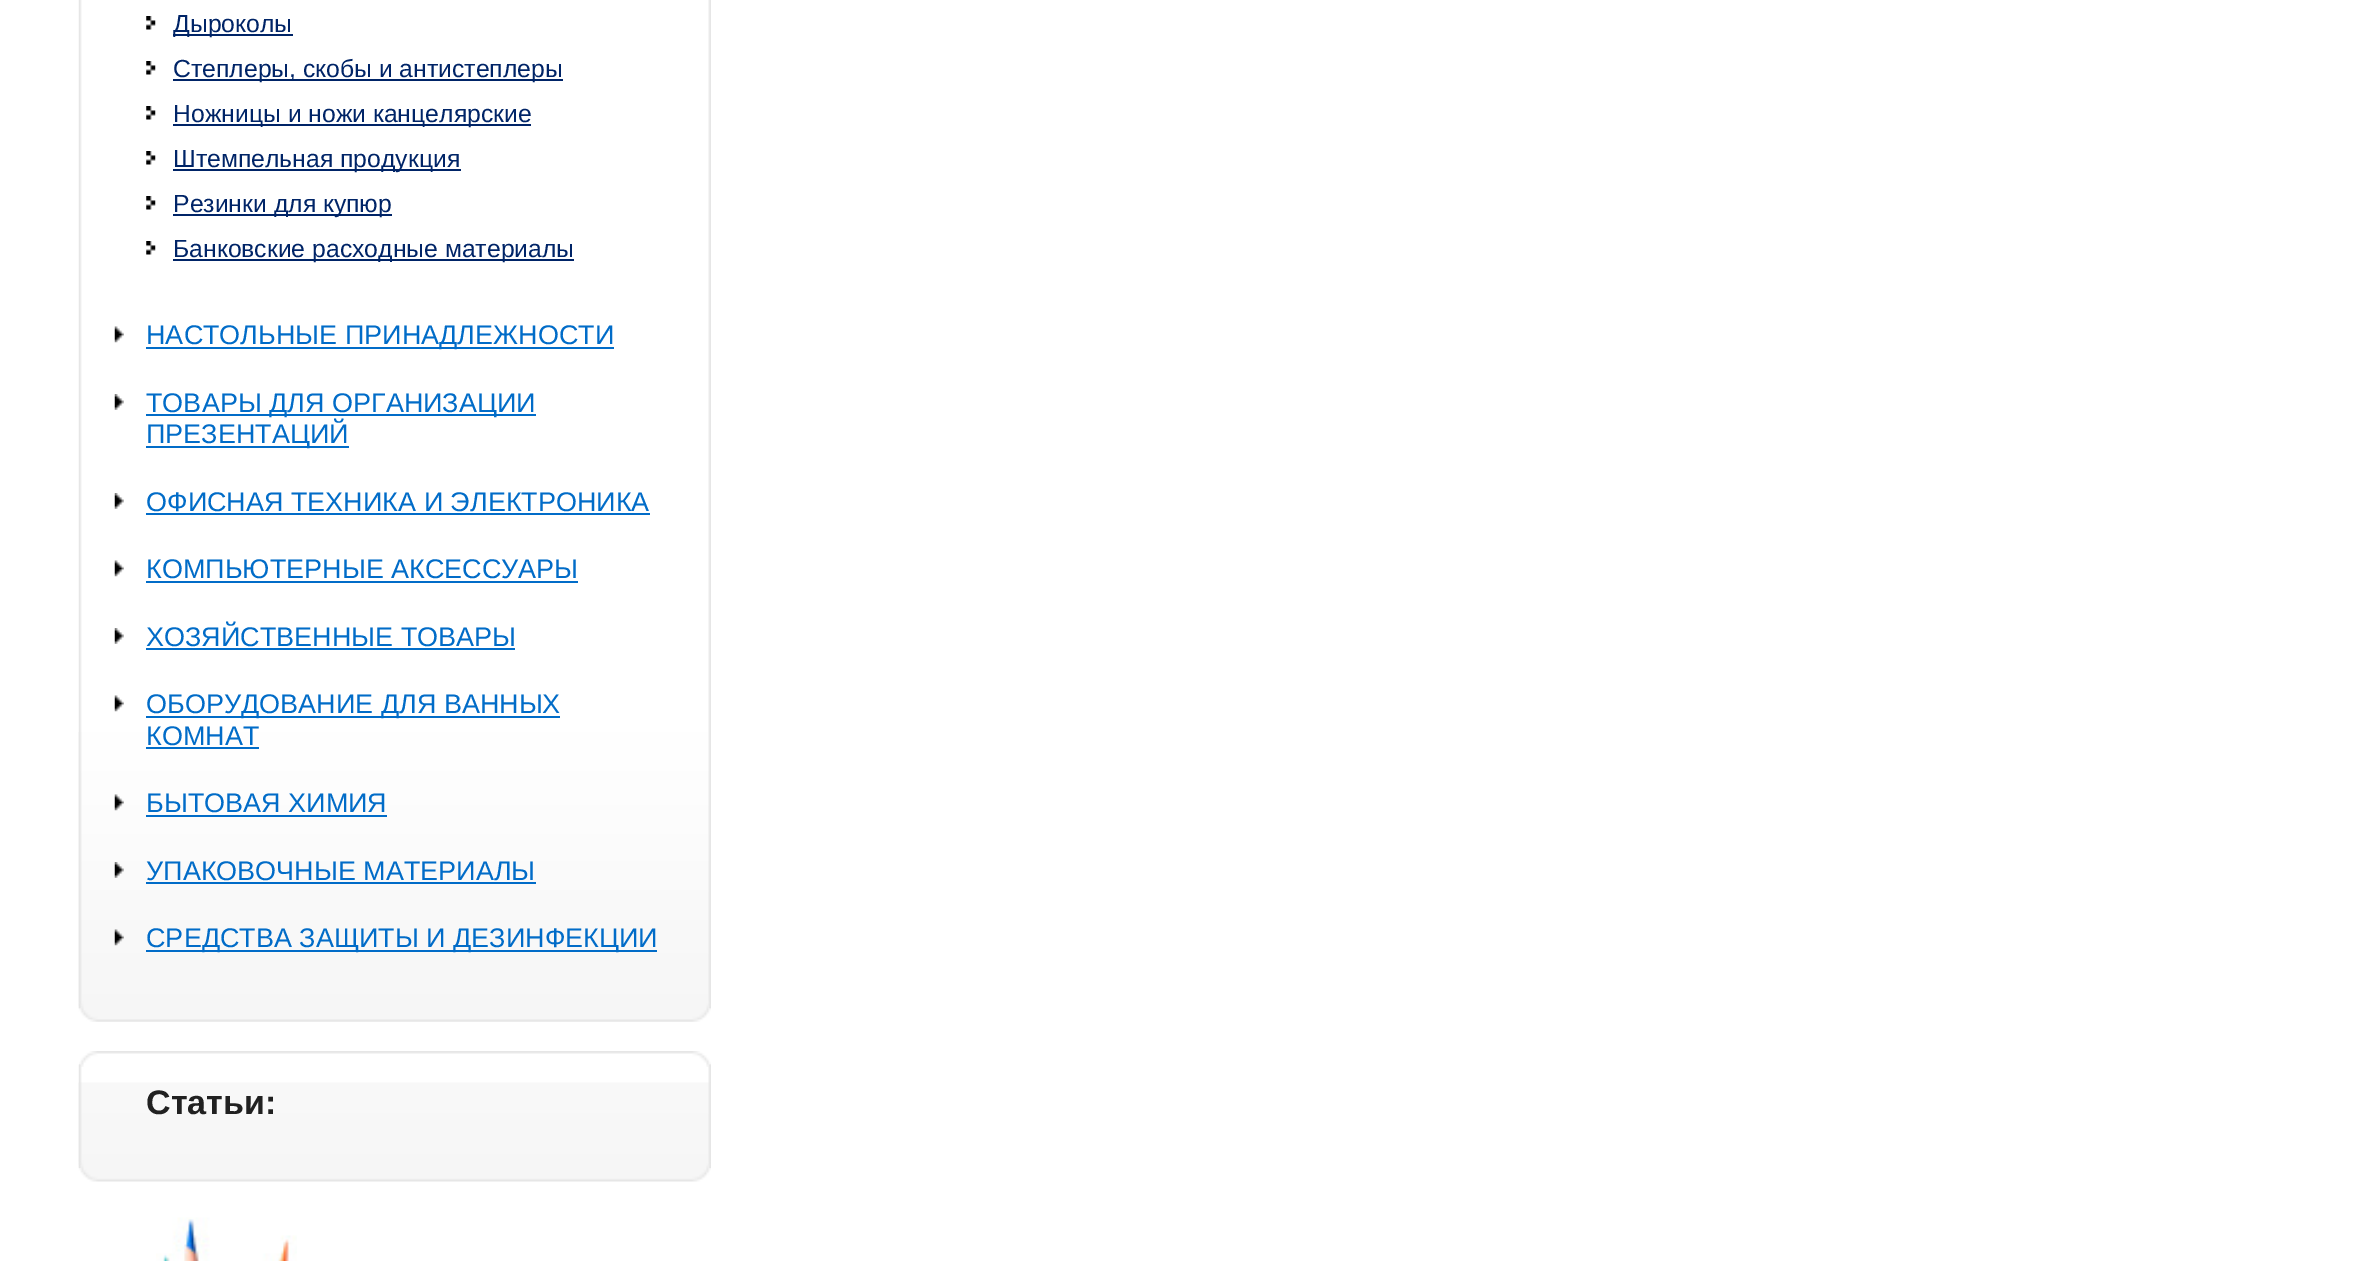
%!PS-Adobe-3.0
%%BoundingBox: 0 0 2362 1261
%%LanguageLevel: 3
%%Pages: 1
%%EndComments
%%BeginProlog
/drawimage { 5 dict begin { /h /w /y /x /name } { exch def } forall
  gsave x y translate w h scale
  w h 8 [w 0 0 h 0 0] name (r) file false 3 colorimage grestore end } def
%%EndProlog
%%BeginSetup
<< /PageSize [2362 1261] >> setpagedevice
%%EndSetup
%%Page: 1 1
0 1261 translate 1 -1 scale
4 setmiterlimit
1 setgray
0 0 2362 1261 rectfill
(images/1.raw) 78 0 633 1009 drawimage
(images/2.raw) 78 732 633 290 drawimage
(images/3.raw) 146 16 10 14 drawimage
0 0.141 0.404 setrgbcolor
173 34 120 2 rectfill
(images/3.raw) 146 61 10 14 drawimage
173 79 390 2 rectfill
(images/3.raw) 146 106 10 14 drawimage
173 124 358 2 rectfill
(images/3.raw) 146 151 10 14 drawimage
173 169 288 2 rectfill
(images/3.raw) 146 196 10 14 drawimage
173 214 219 2 rectfill
(images/3.raw) 146 241 10 14 drawimage
173 259 401 2 rectfill
(images/4.raw) 114 326 10 17 drawimage
0.004 0.424 0.784 setrgbcolor
146 347 468 2 rectfill
(images/5.raw) 114 394 10 16 drawimage
146 414 390 2 rectfill
146 446 203 2 rectfill
(images/5.raw) 114 493 10 16 drawimage
146 513 504 2 rectfill
(images/4.raw) 114 560 10 17 drawimage
146 581 432 2 rectfill
(images/5.raw) 114 628 10 16 drawimage
146 648 369 2 rectfill
(images/4.raw) 114 695 10 17 drawimage
146 716 414 2 rectfill
146 747 113 2 rectfill
(images/6.raw) 114 794 10 17 drawimage
146 815 241 2 rectfill
(images/7.raw) 114 862 10 16 drawimage
146 882 390 2 rectfill
(images/8.raw) 114 929 10 17 drawimage
146 950 511 2 rectfill
(images/9.raw) 78 1064 633 104 drawimage
(images/10.raw) 79 1051 632 16 drawimage
(images/11.raw) 78 1082 633 100 drawimage
(images/12.raw) 156 1217 141 44 drawimage
/LiberationSans-Regular [24.75 0 0 -24.75 0 0] selectfont
0 0.141 0.404 setrgbcolor
173 32 moveto (Дыроколы) show
173 77 moveto (Степлеры, скобы и антистеплеры) show
173 122 moveto (Ножницы и ножи канцелярские) show
173 167 moveto (Штемпельная продукция) show
173 212 moveto (Резинки для купюр) show
173 257 moveto (Банковские расходные материалы) show
/LiberationSans-Regular [27 0 0 -27 0 0] selectfont
0.004 0.424 0.784 setrgbcolor
146 344 moveto (НАСТОЛЬНЫЕ ПРИНАДЛЕЖНОСТИ) show
146 412 moveto (ТОВАРЫ ДЛЯ ОРГАНИЗАЦИИ) show
146 443 moveto (ПРЕЗЕНТАЦИЙ) show
146 511 moveto (ОФИСНАЯ ТЕХНИКА И ЭЛЕКТРОНИКА) show
146 578 moveto (КОМПЬЮТЕРНЫЕ АКСЕССУАРЫ) show
146 646 moveto (ХОЗЯЙСТВЕННЫЕ ТОВАРЫ) show
146 713 moveto (ОБОРУДОВАНИЕ ДЛЯ ВАННЫХ) show
146 745 moveto (КОМНАТ) show
146 812 moveto (БЫТОВАЯ ХИМИЯ) show
146 880 moveto (УПАКОВОЧНЫЕ МАТЕРИАЛЫ) show
146 947 moveto (СРЕДСТВА ЗАЩИТЫ И ДЕЗИНФЕКЦИИ) show
/LiberationSans-Bold [34 0 0 -34 0 0] selectfont
0.129 setgray
146 1114 moveto (Статьи:) show
showpage
%%EOF
